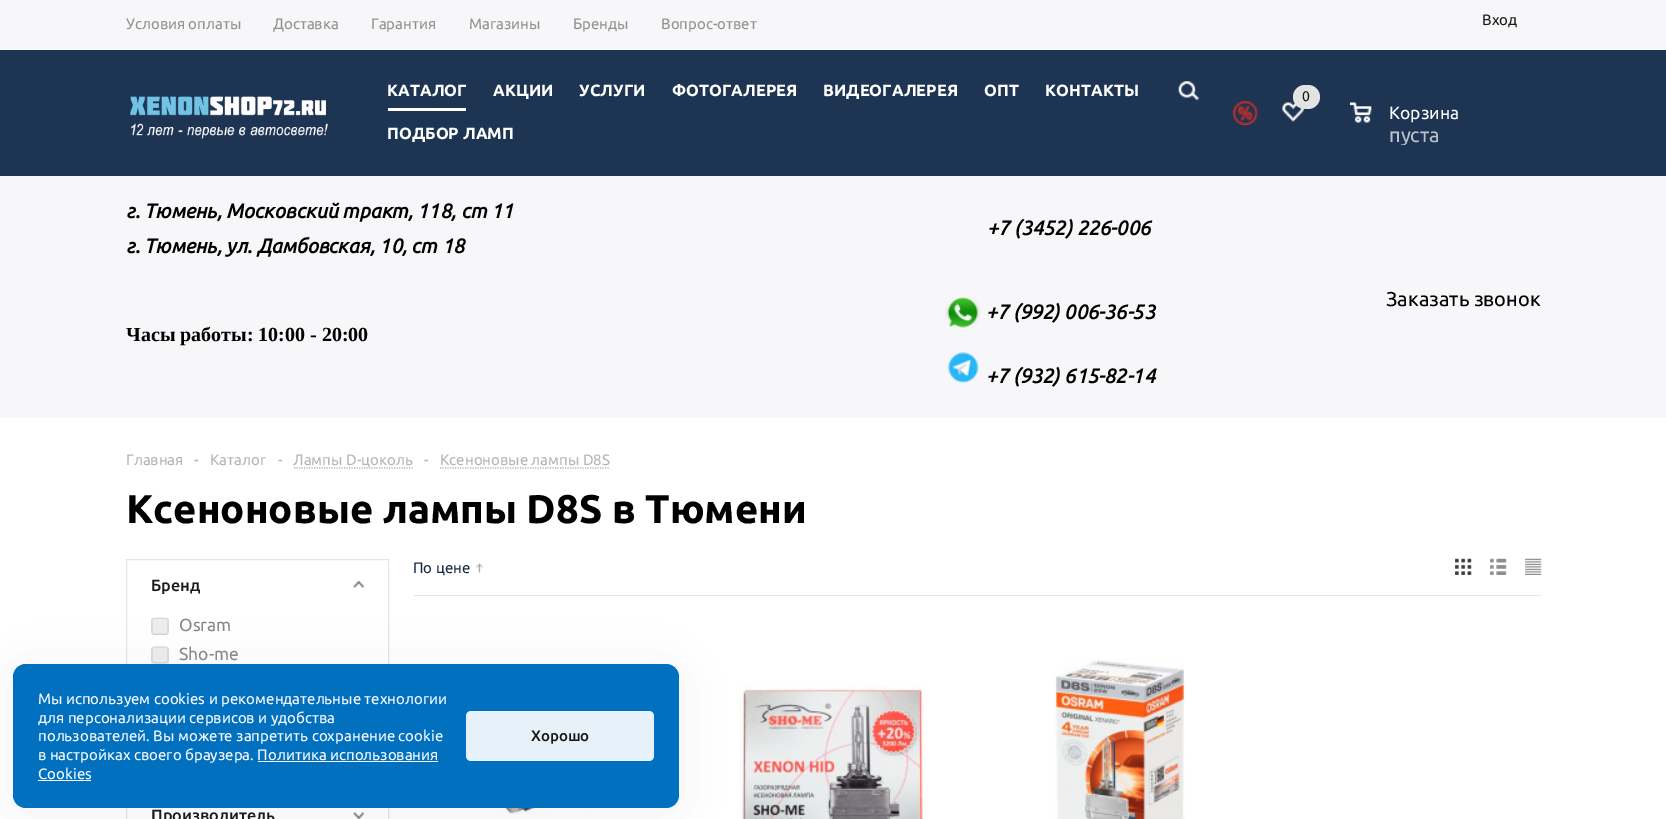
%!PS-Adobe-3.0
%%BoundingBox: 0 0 1666 819
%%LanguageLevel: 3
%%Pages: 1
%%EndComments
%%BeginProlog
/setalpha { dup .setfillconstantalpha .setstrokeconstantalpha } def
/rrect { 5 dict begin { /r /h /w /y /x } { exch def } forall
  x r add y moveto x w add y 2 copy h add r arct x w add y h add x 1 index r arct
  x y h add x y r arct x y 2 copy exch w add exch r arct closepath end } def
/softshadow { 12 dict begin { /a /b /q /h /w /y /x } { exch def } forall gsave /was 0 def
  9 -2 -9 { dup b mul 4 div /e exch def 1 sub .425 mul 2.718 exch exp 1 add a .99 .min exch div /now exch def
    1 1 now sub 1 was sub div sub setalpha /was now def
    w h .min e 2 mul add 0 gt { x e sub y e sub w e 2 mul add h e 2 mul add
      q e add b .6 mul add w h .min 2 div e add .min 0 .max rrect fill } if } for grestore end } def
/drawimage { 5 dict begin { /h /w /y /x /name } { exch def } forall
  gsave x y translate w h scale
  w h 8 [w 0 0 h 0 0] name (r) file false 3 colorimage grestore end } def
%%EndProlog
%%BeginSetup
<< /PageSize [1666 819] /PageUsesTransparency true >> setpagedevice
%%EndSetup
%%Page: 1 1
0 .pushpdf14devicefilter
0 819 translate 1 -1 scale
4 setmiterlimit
1 setgray
0 0 1666 819 rectfill
0.969 0.969 0.976 setrgbcolor
0 0 1666 49 rectfill
0.114 0.208 0.325 setrgbcolor
0 50 1666 126 rectfill
(images/1.raw) 130 96 198 43 drawimage
1 setgray
388 108 78 3 rectfill
(images/2.raw) 1178 81 21 20 drawimage
(images/3.raw) 1232 101 26 24 drawimage
(images/4.raw) 1282 102 22 20 drawimage
0.89 setgray
1293 85 27 24 12 rrect fill
(images/5.raw) 1350 102 22 21 drawimage
0.969 0.969 0.976 setrgbcolor
0 176 1666 242 rectfill
(images/6.raw) 945 295 35 35 drawimage
(images/7.raw) 947 352 32 31 drawimage
0.706 setgray
1.2 setlinewidth
[1.25 1.25] 0 setdash
newpath 294 468 moveto 412.5 468 lineto stroke
newpath 440 468 moveto 610 468 lineto stroke
0.898 setgray
414 595 1127 1 rectfill
(images/8.raw) 476 563 7 10 drawimage
(images/9.raw) 1455 558 17 17 drawimage
(images/10.raw) 1490 558 17 17 drawimage
(images/11.raw) 1525 558 17 17 drawimage
(images/12.raw) 495 808 110 7 drawimage
(images/13.raw) 739 686 187 133 drawimage
(images/14.raw) 1054 658 132 161 drawimage
1 setlinewidth
[] 0 setdash
126.5 559.5 262 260 rectstroke
(images/15.raw) 353 581 11 7 drawimage
(images/16.raw) 151 617 18 18 drawimage
(images/17.raw) 151 646 18 18 drawimage
(images/18.raw) 353 812 11 7 drawimage
0 setgray
13 669 666 144 13 27 0.05 softshadow
0 0.439 0.749 setrgbcolor
13 664 666 144 13 rrect fill
1 setgray
258 761 180 1 rectfill
38 780 53 1 rectfill
0.902 0.945 0.976 setrgbcolor
466 711 188 50 5 rrect fill
/Ubuntu-Regular [15 0 0 -15 0 0] selectfont
0.569 setgray
126 29 moveto (Условия оплаты) show
273 29 moveto (Доставка) show
371 29 moveto (Гарантия) show
469 29 moveto (Магазины) show
573 29 moveto (Бренды) show
661 29 moveto (Вопрос-ответ) show
0.114 0.102 0.102 setrgbcolor
1482 25 moveto (Вход) show
/Ubuntu-Bold [16.25 0 0 -16.25 0 0] selectfont
1 setgray
387 96 moveto (КАТАЛОГ) show
493 96 moveto (АКЦИИ) show
579 96 moveto (УСЛУГИ) show
672 96 moveto (ФОТОГАЛЕРЕЯ) show
823 96 moveto (ВИДЕОГАЛЕРЕЯ) show
984 96 moveto (ОПТ) show
1045 96 moveto (КОНТАКТЫ) show
387 139 moveto (ПОДБОР ЛАМП) show
/Ubuntu-Regular [14 0 0 -14 0 0] selectfont
0.114 0.102 0.102 setrgbcolor
1302 101 moveto (0) show
/Ubuntu-Regular [17.5 0 0 -17.5 0 0] selectfont
1 setgray
1389 119 moveto (Корзина) show
gsave
1390 125 70 20 rectclip
/Ubuntu-Regular [20 0 0 -20 0 0] selectfont
0.733 0.761 0.796 setrgbcolor
1389 142 moveto (пуста) show
grestore
/Ubuntu-BoldItalic [20 0 0 -20 0 0] selectfont
0 setgray
126 218 moveto (г. Тюмень, Московский тракт, 118, ст 11) show
126 253 moveto (г. Тюмень, ул. Дамбовская, 10, ст 18) show
987 235 moveto (+7 \(3452\) 226-006) show
/LiberationSerif-Bold [20 0 0 -20 0 0] selectfont
126 341 moveto (Часы работы: 10:00 - 20:00) show
/Ubuntu-BoldItalic [20 0 0 -20 0 0] selectfont
986 319 moveto (+7 \(992\) 006-36-53) show
986 383 moveto (+7 \(932\) 615-82-14) show
/Ubuntu-Regular [20 0 0 -20 0 0] selectfont
1386 306 moveto (Заказать звонок) show
/Ubuntu-Regular [15 0 0 -15 0 0] selectfont
0.714 0.71 0.71 setrgbcolor
126 465 moveto (Главная) show
194 465 moveto (-) show
210 465 moveto (Каталог) show
278 465 moveto (-) show
293 465 moveto (Лампы D-цоколь) show
424 465 moveto (-) show
440 465 moveto (Ксеноновые лампы D8S) show
/Ubuntu-Bold [40 0 0 -40 0 0] selectfont
0 setgray
126 523 moveto (Ксеноновые лампы D8S в Тюмени) show
/Ubuntu-Regular [15 0 0 -15 0 0] selectfont
0.094 0.169 0.267 setrgbcolor
413 573 moveto (По цене) show
/Ubuntu-Medium [16.25 0 0 -16.25 0 0] selectfont
0.114 0.102 0.102 setrgbcolor
151 591 moveto (Бренд) show
/Ubuntu-Regular [17.5 0 0 -17.5 0 0] selectfont
0.533 setgray
179 631 moveto (Osram) show
179 660 moveto (Sho-me) show
/Ubuntu-Medium [16.25 0 0 -16.25 0 0] selectfont
0.114 0.102 0.102 setrgbcolor
151 821 moveto (Производитель) show
/Ubuntu-Regular [15 0 0 -15 0 0] selectfont
1 setgray
38 704 moveto (Мы используем cookies и рекомендательные технологии) show
38 723 moveto (для персонализации сервисов и удобства) show
38 741 moveto (пользователей. Вы можете запретить сохранение cookie) show
38 760 moveto (в настройках своего браузера. Политика использования) show
38 779 moveto (Cookies) show
/Ubuntu-Medium [15 0 0 -15 0 0] selectfont
0.09 setgray
531 741 moveto (Хорошо) show
.poppdf14devicefilter showpage
%%EOF
